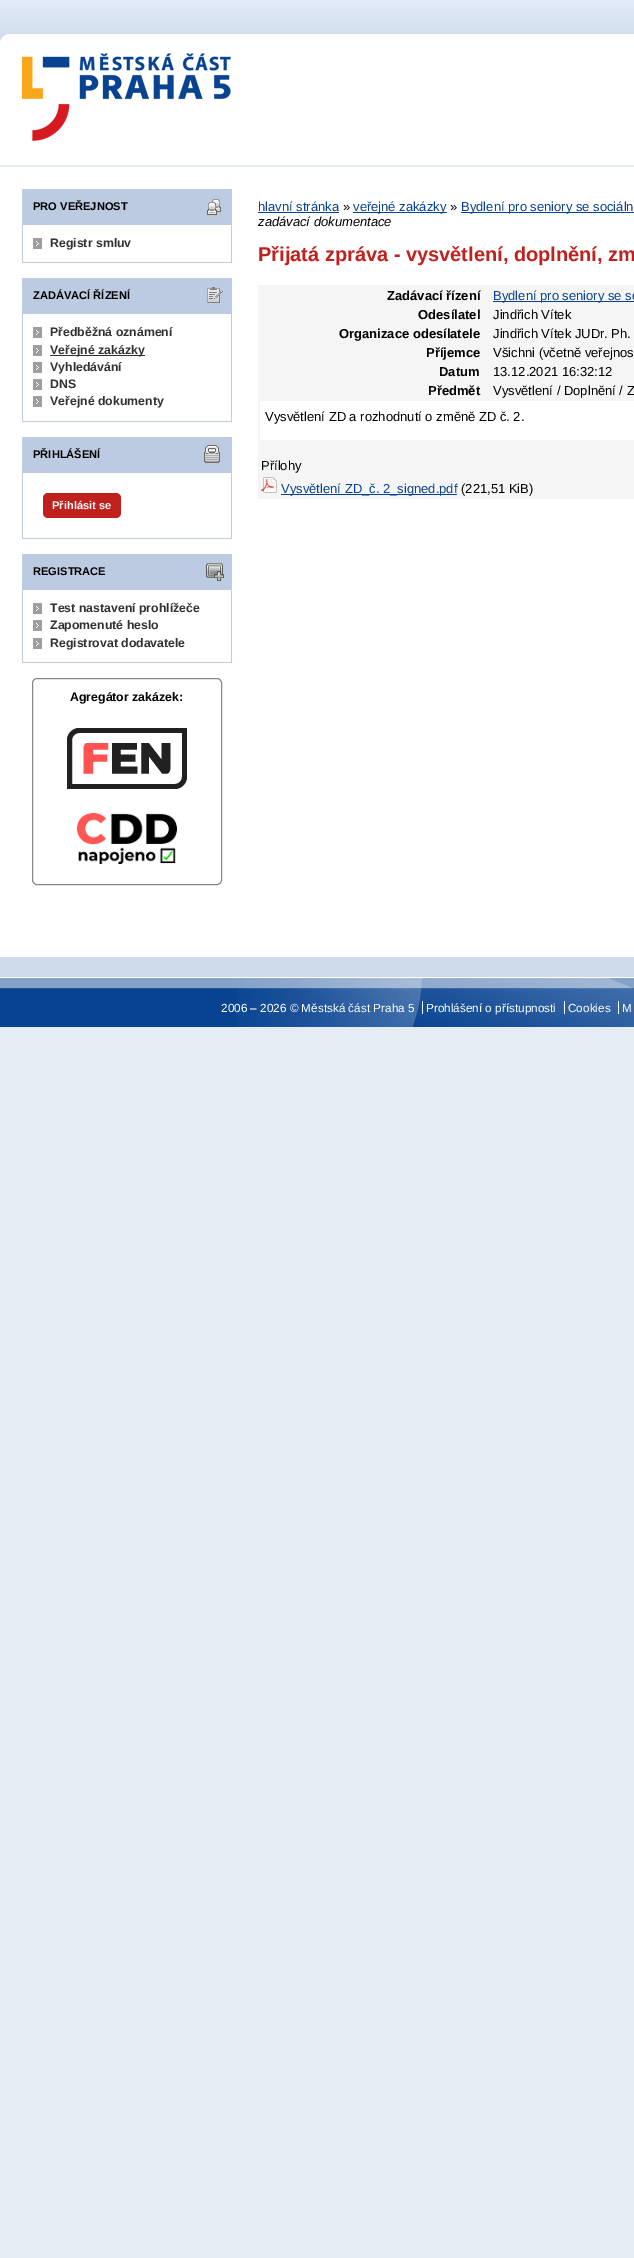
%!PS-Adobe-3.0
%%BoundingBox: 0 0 634 2258
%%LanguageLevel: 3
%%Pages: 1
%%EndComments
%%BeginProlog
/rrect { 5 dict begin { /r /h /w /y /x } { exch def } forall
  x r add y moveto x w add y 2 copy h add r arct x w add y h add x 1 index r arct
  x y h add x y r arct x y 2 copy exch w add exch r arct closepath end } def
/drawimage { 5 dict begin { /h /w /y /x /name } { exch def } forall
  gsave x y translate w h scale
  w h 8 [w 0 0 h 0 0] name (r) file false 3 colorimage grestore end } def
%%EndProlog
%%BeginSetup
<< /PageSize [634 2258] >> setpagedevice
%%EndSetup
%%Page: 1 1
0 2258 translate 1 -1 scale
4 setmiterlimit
0.902 0.925 0.957 setrgbcolor
0 0 634 2258 rectfill
(images/1.raw) 0 0 634 25 drawimage
0.812 0.859 0.918 setrgbcolor
0 957 634 20 rectfill
1 setgray
0 167 634 790 rectfill
0 42 634 123 rectfill
(images/2.raw) 0 25 634 17 drawimage
(images/3.raw) 22 53 209 88 drawimage
0.737 0.796 0.882 setrgbcolor
23 190 208 35 rectfill
(images/4.raw) 207 199 14 17 drawimage
0.745 0.808 0.886 setrgbcolor
22 189 210 1 rectfill
231 189 1 74 rectfill
22 189 1 36 rectfill
22 262 210 1 rectfill
22 225 1 38 rectfill
(images/5.raw) 33 238 9 11 drawimage
0.737 0.796 0.882 setrgbcolor
23 279 208 35 rectfill
(images/6.raw) 207 287 16 16 drawimage
0.745 0.808 0.886 setrgbcolor
22 278 210 1 rectfill
231 278 1 144 rectfill
22 278 1 36 rectfill
22 421 210 1 rectfill
22 314 1 108 rectfill
(images/5.raw) 33 327 9 11 drawimage
(images/5.raw) 33 345 9 11 drawimage
0.196 setgray
50 355 95 1 rectfill
(images/5.raw) 33 362 9 11 drawimage
(images/5.raw) 33 379 9 11 drawimage
(images/5.raw) 33 396 9 11 drawimage
0.737 0.796 0.882 setrgbcolor
23 438 208 35 rectfill
(images/7.raw) 204 445 16 18 drawimage
0.745 0.808 0.886 setrgbcolor
22 437 210 1 rectfill
231 437 1 102 rectfill
22 437 1 36 rectfill
22 538 210 1 rectfill
22 473 1 66 rectfill
0.753 0.129 0.114 setrgbcolor
43 493 78 25 5 rrect fill
0.737 0.796 0.882 setrgbcolor
23 555 208 35 rectfill
(images/8.raw) 206 563 18 18 drawimage
0.745 0.808 0.886 setrgbcolor
22 554 210 1 rectfill
231 554 1 109 rectfill
22 554 1 36 rectfill
22 662 210 1 rectfill
22 590 1 73 rectfill
(images/5.raw) 33 603 9 11 drawimage
(images/5.raw) 33 620 9 11 drawimage
(images/5.raw) 33 638 9 11 drawimage
0.533 setgray
32.5 678.5 189 206 4.5 rrect stroke
(images/9.raw) 67 728 120 61 drawimage
(images/10.raw) 77 813 100 51 drawimage
0.031 0.263 0.569 setrgbcolor
258 212 81 1 rectfill
353 212 94 1 rectfill
461 212 173 1 rectfill
0.961 setgray
258 285 376 214 rectfill
0.031 0.263 0.569 setrgbcolor
493 301 141 1 rectfill
1 setgray
260 401 374 39 rectfill
(images/11.raw) 261 477 16 16 drawimage
0.031 0.263 0.569 setrgbcolor
281 494 176 1 rectfill
(images/12.raw) 0 977 634 50 drawimage
(images/13.raw) 237 978 397 49 drawimage
1 setgray
422 1001 1 13 rectfill
564 1001 1 13 rectfill
618 1001 1 13 rectfill
/LiberationSans-Bold [11.1 0 0 -11.1 0 0] selectfont
0 setgray
33 210 moveto (PRO VEŘEJNOST) show
/LiberationSans-Bold [12.3 0 0 -12.3 0 0] selectfont
0.196 setgray
50 247 moveto (Registr smluv) show
/LiberationSans-Bold [11.1 0 0 -11.1 0 0] selectfont
0 setgray
33 299 moveto (ZADÁVACÍ ŘÍZENÍ) show
/LiberationSans-Bold [12.3 0 0 -12.3 0 0] selectfont
0.196 setgray
50 336 moveto (Předběžná oznámení) show
50 354 moveto (Veřejné zakázky) show
50 371 moveto (Vyhledávání) show
50 388 moveto (DNS) show
50 405 moveto (Veřejné dokumenty) show
/LiberationSans-Bold [11.1 0 0 -11.1 0 0] selectfont
0 setgray
33 458 moveto (PŘIHLÁŠENÍ) show
1 setgray
52 509 moveto (Přihlásit se) show
0 setgray
33 575 moveto (REGISTRACE) show
/LiberationSans-Bold [12.3 0 0 -12.3 0 0] selectfont
0.196 setgray
50 612 moveto (Test nastavení prohlížeče) show
50 629 moveto (Zapomenuté heslo) show
50 647 moveto (Registrovat dodavatele) show
0 setgray
70 701 moveto (Agregátor zakázek:) show
/LiberationSans-Regular [13 0 0 -13 0 0] selectfont
0.031 0.263 0.569 setrgbcolor
258 211 moveto (hlavní stránka) show
0 setgray
343 211 moveto (») show
0.031 0.263 0.569 setrgbcolor
353 211 moveto (veřejné zakázky) show
0 setgray
450 211 moveto (») show
0.031 0.263 0.569 setrgbcolor
461 211 moveto (Bydlení pro seniory se sociáln) show
/LiberationSans-Italic [13 0 0 -13 0 0] selectfont
0 setgray
258 226 moveto (zadávací dokumentace) show
/LiberationSans-Bold [20 0 0 -20 0 0] selectfont
0.753 0.129 0.114 setrgbcolor
258 261 moveto (Přijatá zpráva - vysvětlení, doplnění, zm) show
/LiberationSans-Bold [13 0 0 -13 0 0] selectfont
0 setgray
387 300 moveto (Zadávací řízení) show
/LiberationSans-Regular [13 0 0 -13 0 0] selectfont
0.031 0.263 0.569 setrgbcolor
493 300 moveto (Bydlení pro seniory se so) show
/LiberationSans-Bold [13 0 0 -13 0 0] selectfont
0 setgray
418 319 moveto (Odesílatel) show
/LiberationSans-Regular [13 0 0 -13 0 0] selectfont
493 319 moveto (Jindřich Vítek) show
/LiberationSans-Bold [13 0 0 -13 0 0] selectfont
339 338 moveto (Organizace odesílatele) show
/LiberationSans-Regular [13 0 0 -13 0 0] selectfont
493 338 moveto (Jindřich Vítek JUDr. Ph.) show
/LiberationSans-Bold [13 0 0 -13 0 0] selectfont
426 357 moveto (Příjemce) show
/LiberationSans-Regular [13 0 0 -13 0 0] selectfont
493 357 moveto (Všichni \(včetně veřejnos) show
/LiberationSans-Bold [13 0 0 -13 0 0] selectfont
439 376 moveto (Datum) show
/LiberationSans-Regular [13 0 0 -13 0 0] selectfont
493 376 moveto (13.12.2021 16:32:12) show
/LiberationSans-Bold [13 0 0 -13 0 0] selectfont
428 395 moveto (Předmět) show
/LiberationSans-Regular [13 0 0 -13 0 0] selectfont
493 395 moveto (Vysvětlení / Doplnění / Z) show
265 421 moveto (Vysvětlení ZD a rozhodnutí o změně ZD č. 2.) show
261 470 moveto (Přílohy) show
0.031 0.263 0.569 setrgbcolor
281 493 moveto (Vysvětlení ZD_č. 2_signed.pdf) show
0 setgray
461 493 moveto (\(221,51 KiB\)) show
/LiberationSans-Regular [11.75 0 0 -11.75 0 0] selectfont
1 setgray
221 1012 moveto (2006 – 2026 © Městská část Praha 5) show
426 1012 moveto (Prohlášení o přístupnosti) show
568 1012 moveto (Cookies) show
622 1012 moveto (M) show
showpage
%%EOF
